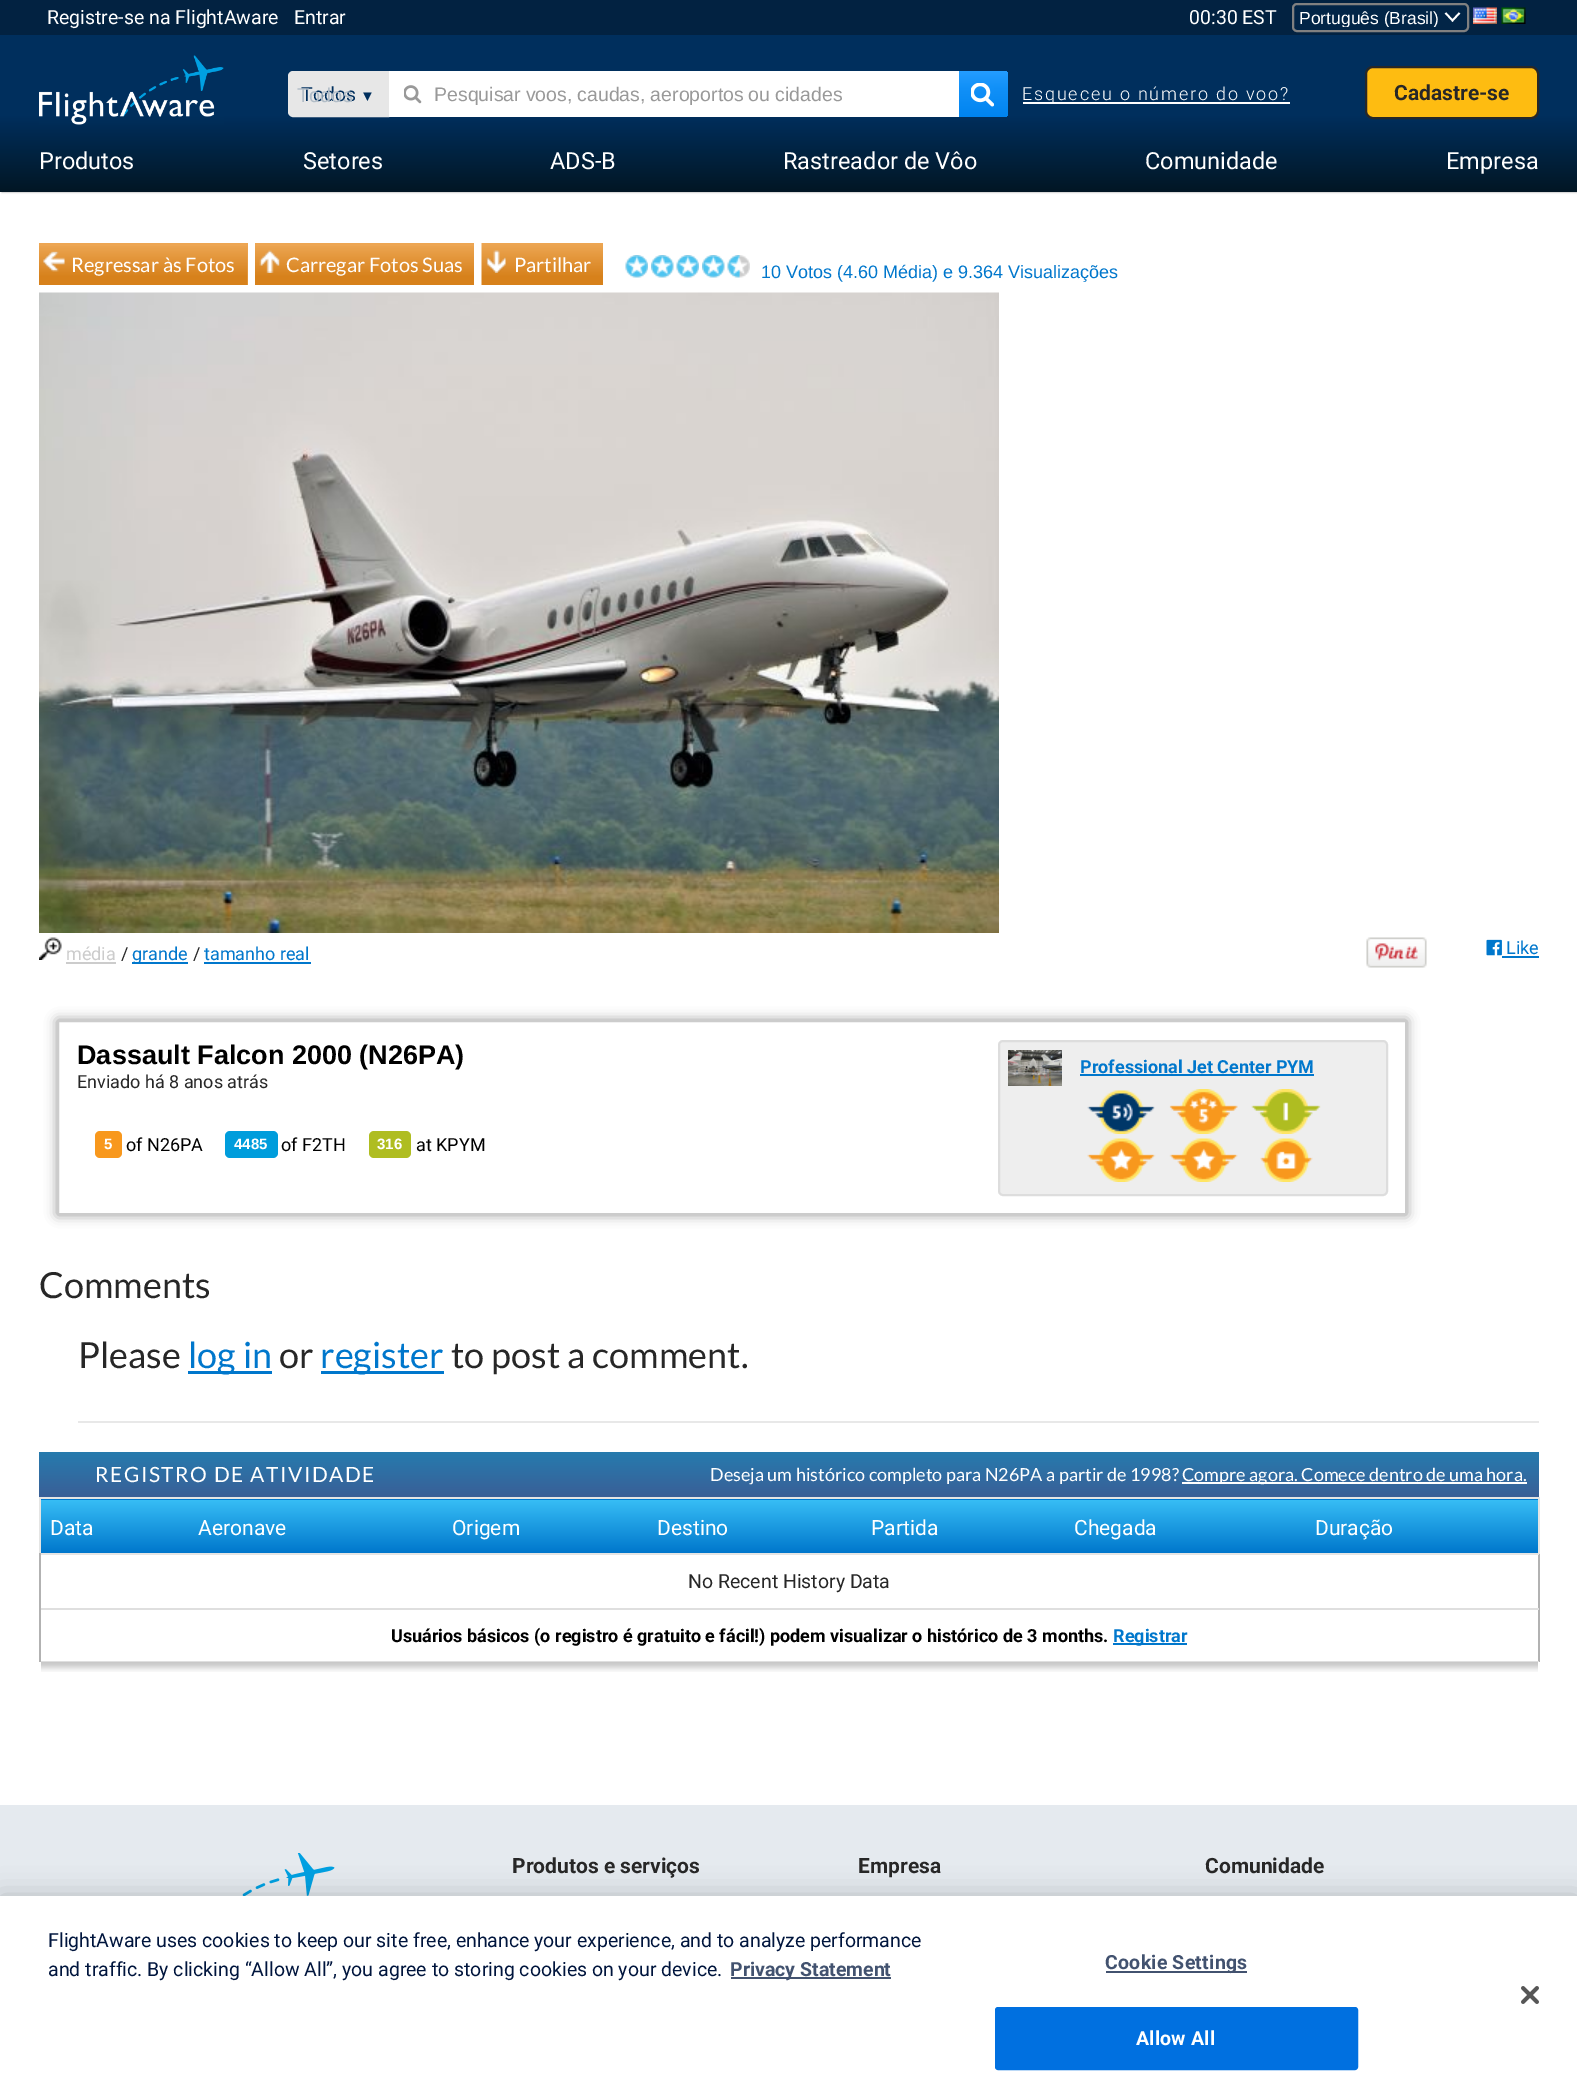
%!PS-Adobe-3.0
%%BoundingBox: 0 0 1577 2100
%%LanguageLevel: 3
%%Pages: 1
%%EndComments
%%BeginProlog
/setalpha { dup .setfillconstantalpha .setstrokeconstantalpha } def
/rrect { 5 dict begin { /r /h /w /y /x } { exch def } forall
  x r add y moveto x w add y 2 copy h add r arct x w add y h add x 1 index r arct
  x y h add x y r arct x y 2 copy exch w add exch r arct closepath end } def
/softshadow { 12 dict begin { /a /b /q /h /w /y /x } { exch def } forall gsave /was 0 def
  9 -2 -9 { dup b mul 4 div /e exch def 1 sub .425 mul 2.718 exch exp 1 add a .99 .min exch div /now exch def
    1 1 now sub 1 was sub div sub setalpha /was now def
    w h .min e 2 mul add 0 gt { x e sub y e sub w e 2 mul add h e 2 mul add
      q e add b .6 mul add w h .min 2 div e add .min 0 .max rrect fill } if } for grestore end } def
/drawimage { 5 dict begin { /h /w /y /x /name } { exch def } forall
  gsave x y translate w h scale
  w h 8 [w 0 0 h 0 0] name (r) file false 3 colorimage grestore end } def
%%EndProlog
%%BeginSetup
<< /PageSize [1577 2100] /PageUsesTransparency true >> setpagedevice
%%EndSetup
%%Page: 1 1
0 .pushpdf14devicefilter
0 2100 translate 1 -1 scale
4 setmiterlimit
1 setgray
0 0 1577 2100 rectfill
0.533 setgray
2 3 1575 189 0 1 1 softshadow
gsave newpath 0 35 moveto 1577 35 lineto 1577 192 lineto 0 192 lineto closepath clip newpath
<< /ShadingType 2 /ColorSpace /DeviceRGB /Coords [789 0 789 192] /Extend [true true] /Function << /FunctionType 3 /Domain [0 1] /Functions [<< /FunctionType 2 /Domain [0 1] /C0 [0 0.184 0.365] /C1 [0 0.184 0.365] /N 1 >> << /FunctionType 2 /Domain [0 1] /C0 [0 0.184 0.365] /C1 [0.008 0.086 0.141] /N 1 >>] /Bounds [0.6] /Encode [0 1 0 1] >> >> shfill grestore
0.008 0.133 0.255 setrgbcolor
0 0 1577 35 rectfill
0.008 0.145 0.278 setrgbcolor
1292 3 177 29 5 rrect fill
1 setgray
1.8 setlinewidth
newpath 1445.5 13 moveto 1452.5 20.5 lineto 1459.5 13 lineto stroke
0.502 setgray
2 setlinewidth
1293 4 175 27 4 rrect stroke
(images/1.raw) 1473 7 24 17 drawimage
(images/2.raw) 1501 7 25 17 drawimage
(images/3.raw) 39 55 185 70 drawimage
0.906 setgray
newpath 293 72 moveto 388 72 lineto 388 116 lineto 293 116 lineto 291 116 289 114 289 112 curveto 289 76 lineto 289 74 291 72 293 72 curveto closepath gsave fill grestore
stroke
1 setgray
389 71 570 46 rectfill
(images/4.raw) 404 85 18 19 drawimage
gsave newpath 959 71 moveto 1003 71 lineto 1006 71 1008 73 1008 76 curveto 1008 112 lineto 1008 115 1006 117 1003 117 curveto 959 117 lineto closepath clip newpath
<< /ShadingType 2 /ColorSpace /DeviceRGB /Coords [983 117 983 71] /Extend [true true] /Function << /FunctionType 3 /Domain [0 1] /Functions [<< /FunctionType 2 /Domain [0 1] /C0 [0 0.518 0.941] /C1 [0.071 0.569 0.973] /N 1 >> << /FunctionType 2 /Domain [0 1] /C0 [0.071 0.569 0.973] /C1 [0.141 0.616 1] /N 1 >>] /Bounds [0.66] /Encode [0 1 0 1] >> >> shfill grestore
(images/5.raw) 971 83 23 24 drawimage
1023 102 267 2 rectfill
0.996 0.737 0.067 setrgbcolor
1366 67 172 51 7 rrect gsave fill grestore
0.153 setgray
stroke
0.929 0.651 0.325 setrgbcolor
39 243 209 42 rectfill
(images/6.raw) 39 246 209 39 drawimage
(images/7.raw) 43 251 22 21 drawimage
255 243 219 3 rectfill
(images/8.raw) 255 246 219 39 drawimage
(images/9.raw) 259 250 21 23 drawimage
(images/10.raw) 481 243 122 42 drawimage
(images/11.raw) 486 250 20 23 drawimage
(images/12.raw) 625 255 23 23 drawimage
(images/13.raw) 651 255 23 23 drawimage
(images/12.raw) 676 255 23 23 drawimage
(images/14.raw) 702 255 23 23 drawimage
(images/15.raw) 727 255 23 23 drawimage
(images/16.raw) 39 292 960 641 drawimage
(images/17.raw) 39 937 23 23 drawimage
0.8 setgray
66 962 50 2 rectfill
0 0.467 0.8 setrgbcolor
132 962 56 2 rectfill
204 962 107 2 rectfill
(images/18.raw) 1366 937 61 31 drawimage
(images/19.raw) 1486 939 16 17 drawimage
1502 956 37 2 rectfill
gsave
newpath 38 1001 moveto 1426 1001 lineto 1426 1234 lineto 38 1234 lineto closepath 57 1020 moveto 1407 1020 lineto 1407 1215 lineto 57 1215 lineto closepath eoclip newpath
0.6 setgray
57 1020 1350 195 0 6 1 softshadow
grestore
0.8 setgray
58 1021 1348 193 rectstroke
0.973 0.596 0.114 setrgbcolor
95 1131 27 27 5 rrect fill
0 0.616 0.863 setrgbcolor
225 1131 53 27 5 rrect fill
0.686 0.741 0.129 setrgbcolor
369 1131 42 27 5 rrect fill
0.933 setgray
999 1041 388 154 4 rrect gsave fill grestore
0.867 setgray
stroke
(images/20.raw) 1008 1050 54 36 drawimage
0 0.467 0.8 setrgbcolor
1080 1074 234 2 rectfill
(images/21.raw) 1087 1090 68 44 drawimage
(images/22.raw) 1169 1089 69 45 drawimage
(images/23.raw) 1251 1089 70 45 drawimage
(images/24.raw) 1087 1138 69 44 drawimage
(images/25.raw) 1169 1138 69 44 drawimage
(images/26.raw) 1260 1138 53 44 drawimage
0.91 setgray
78 1421 1461 2 rectfill
0 0.467 0.8 setrgbcolor
188 1371 84 3 rectfill
321 1371 123 3 rectfill
gsave newpath 39 1452 moveto 1539 1452 lineto 1539 1497 lineto 39 1497 lineto closepath clip newpath
<< /ShadingType 2 /ColorSpace /DeviceRGB /Coords [39 1452 39 1497] /Extend [true true] /Function << /FunctionType 2 /Domain [0 1] /C0 [0.149 0.482 0.682] /C1 [0.227 0.373 0.592] /N 1 >> >> shfill grestore
1 setgray
1182 1482 345 2 rectfill
0.698 setgray
1538 1554 2 108 rectfill
gsave newpath 41 1499 moveto 1538 1499 lineto 1538 1500 lineto 41 1500 lineto closepath clip newpath
<< /ShadingType 2 /ColorSpace /DeviceRGB /Coords [42 1448 42 1500] /Extend [true true] /Function << /FunctionType 2 /Domain [0 1] /C0 [0.216 0.741 0.961] /C1 [0 0.467 0.8] /N 1 >> >> shfill grestore
gsave newpath 41 1500 moveto 1538 1500 lineto 1538 1553 lineto 41 1553 lineto closepath clip newpath
<< /ShadingType 2 /ColorSpace /DeviceRGB /Coords [42 1500 42 1553] /Extend [true true] /Function << /FunctionType 2 /Domain [0 1] /C0 [0.216 0.741 0.961] /C1 [0 0.467 0.8] /N 1 >> >> shfill grestore
0.898 0.898 0.894 setrgbcolor
39 1497 1500 2 rectfill
1538 1497 2 57 rectfill
39 1553 1500 2 rectfill
39 1497 2 57 rectfill
0.875 setgray
39 1608 1500 2 rectfill
39 1661 1500 1 rectfill
0.698 setgray
39 1553 2 109 rectfill
0 0.467 0.8 setrgbcolor
1113 1643 74 2 rectfill
(images/27.raw) 41 1662 1497 10 drawimage
0.898 0.918 0.937 setrgbcolor
0 1805 1577 91 rectfill
(images/28.raw) 242 1853 93 43 drawimage
0 setgray
0 1896 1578 204 0 13.5 0.2 softshadow
1 setgray
0 1896 1577 204 rectfill
0.259 0.322 0.435 setrgbcolor
731 1977 160 2 rectfill
1106 1971 141 2 rectfill
0 0.439 0.878 setrgbcolor
996 2008 361 61 2 rrect gsave fill grestore
stroke
(images/29.raw) 1521 1986 18 18 drawimage
/Roboto-Regular [19.5 0 0 -19.5 0 0] selectfont
1 setgray
47 24 moveto (Registre-se na FlightAware) show
294 24 moveto (Entrar) show
1189 24 moveto (00:30 EST) show
gsave
1299 8 162 19 rectclip
/LiberationSans-Regular [17.5 0 0 -17.5 0 0] selectfont
1299 24 moveto (Português \(Brasil\)) show
grestore
0 0.184 0.365 setrgbcolor
301 101 moveto (Todos) show
/LiberationSans-Regular [15 0 0 -15 0 0] selectfont
360 101 moveto (▼) show
/LiberationSans-Regular [20 0 0 -20 0 0] selectfont
0.698 0.741 0.78 setrgbcolor
297 102 moveto (Todos) show
/LiberationSans-Regular [19.5 0 0 -19.5 0 0] selectfont
0.6 setgray
434 101 moveto -0.5 0 32 (Pesquisar voos, caudas, aeroportos ou cidades) widthshow
/Roboto-Light [18 0 0 -18 0 0] selectfont
1 setgray
1022 100 moveto 1.8 0 (Esqueceu o número do voo?) ashow
/Roboto-Bold [21 0 0 -21 0 0] selectfont
0.153 setgray
1394 100 moveto (Cadastre-se) show
/Roboto-Regular [23.5 0 0 -23.5 0 0] selectfont
1 setgray
39 169 moveto (Produtos) show
303 169 moveto (Setores) show
550 169 moveto (ADS-B) show
783 169 moveto (Rastreador de Vôo) show
1145 169 moveto (Comunidade) show
1446 169 moveto (Empresa) show
/Lato-Regular [20 0 0 -20 0 0] selectfont
71 272 moveto (Regressar às Fotos) show
286 272 moveto (Carregar Fotos Suas) show
514 272 moveto (Partilhar) show
/LiberationSans-Regular [18 0 0 -18 0 0] selectfont
0 0.467 0.8 setrgbcolor
761 278 moveto (10 Votos \(4.60 Média\) e 9.364 Visualizações) show
/Roboto-Regular [18 0 0 -18 0 0] selectfont
0.8 setgray
66 960 moveto (média) show
0.153 setgray
121 960 moveto (/) show
0 0.467 0.8 setrgbcolor
132 960 moveto (grande) show
0.153 setgray
193 960 moveto (/) show
0 0.467 0.8 setrgbcolor
204 960 moveto (tamanho real) show
1506 954 moveto (Like) show
/LiberationSans-Bold [27 0 0 -27 0 0] selectfont
0 setgray
77 1064 moveto (Dassault Falcon 2000 \(N26PA\)) show
/Roboto-Regular [18 0 0 -18 0 0] selectfont
0.153 setgray
77 1088 moveto (Enviado há 8 anos atrás) show
/LiberationSans-Bold [15 0 0 -15 0 0] selectfont
1 setgray
104 1149 moveto (5) show
/Roboto-Regular [18 0 0 -18 0 0] selectfont
0 setgray
126 1151 moveto (of N26PA) show
/LiberationSans-Bold [15 0 0 -15 0 0] selectfont
1 setgray
234 1149 moveto (4485) show
/Roboto-Regular [18 0 0 -18 0 0] selectfont
0 setgray
281 1151 moveto (of F2TH) show
/LiberationSans-Bold [15 0 0 -15 0 0] selectfont
1 setgray
377 1149 moveto (316) show
/Roboto-Regular [18 0 0 -18 0 0] selectfont
0 setgray
416 1151 moveto (at KPYM) show
/Roboto-Bold [18 0 0 -18 0 0] selectfont
0 0.467 0.8 setrgbcolor
1080 1073 moveto (Professional Jet Center PYM) show
/Lato-Regular [36 0 0 -36 0 0] selectfont
0.153 setgray
39 1298 moveto (Comments) show
78 1368 moveto (Please) show
0 0.467 0.8 setrgbcolor
188 1368 moveto (log in) show
0.153 setgray
279 1368 moveto (or) show
0 0.467 0.8 setrgbcolor
320 1368 moveto (register) show
0.153 setgray
451 1368 moveto (to post a comment.) show
/Lato-Regular [21 0 0 -21 0 0] selectfont
1 setgray
95 1482 moveto 1.5 0 (REGISTRO DE ATIVIDADE) ashow
/Lato-Regular [18 0 0 -18 0 0] selectfont
710 1481 moveto (Deseja um histórico completo para N26PA a partir de 1998?) show
1182 1481 moveto (Compre agora. Comece dentro de uma hora.) show
/Roboto-Regular [21 0 0 -21 0 0] selectfont
50 1535 moveto (Data) show
198 1535 moveto (Aeronave) show
452 1535 moveto (Origem) show
657 1535 moveto (Destino) show
871 1535 moveto (Partida) show
1074 1535 moveto (Chegada) show
1315 1535 moveto (Duração) show
/Roboto-Regular [19.5 0 0 -19.5 0 0] selectfont
0.153 setgray
688 1588 moveto (No Recent History Data) show
/Roboto-Bold [18 0 0 -18 0 0] selectfont
0 setgray
391 1642 moveto (Usuários básicos \(o registro é gratuito e fácil!\) podem visualizar o histórico de 3 months.) show
0 0.467 0.8 setrgbcolor
1113 1642 moveto (Registrar) show
/Roboto-Bold [21 0 0 -21 0 0] selectfont
0.153 setgray
512 1873 moveto (Produtos e serviços) show
858 1873 moveto (Empresa) show
1205 1873 moveto (Comunidade) show
/Roboto-Regular [19.5 0 0 -19.5 0 0] selectfont
0 0.082 0.239 setrgbcolor
48 1947 moveto (FlightAware uses cookies to keep our site free, enhance your experience, and to analyze performance) show
48 1976 moveto (and traffic. By clicking “Allow All”, you agree to storing cookies on your device.) show
/Roboto-Bold [19.5 0 0 -19.5 0 0] selectfont
0.259 0.322 0.435 setrgbcolor
730 1976 moveto (Privacy Statement) show
1105 1969 moveto 0.25 0 (Cookie Settings) ashow
1 setgray
1136 2045 moveto 0.25 0 (Allow All) ashow
.poppdf14devicefilter showpage
%%EOF
